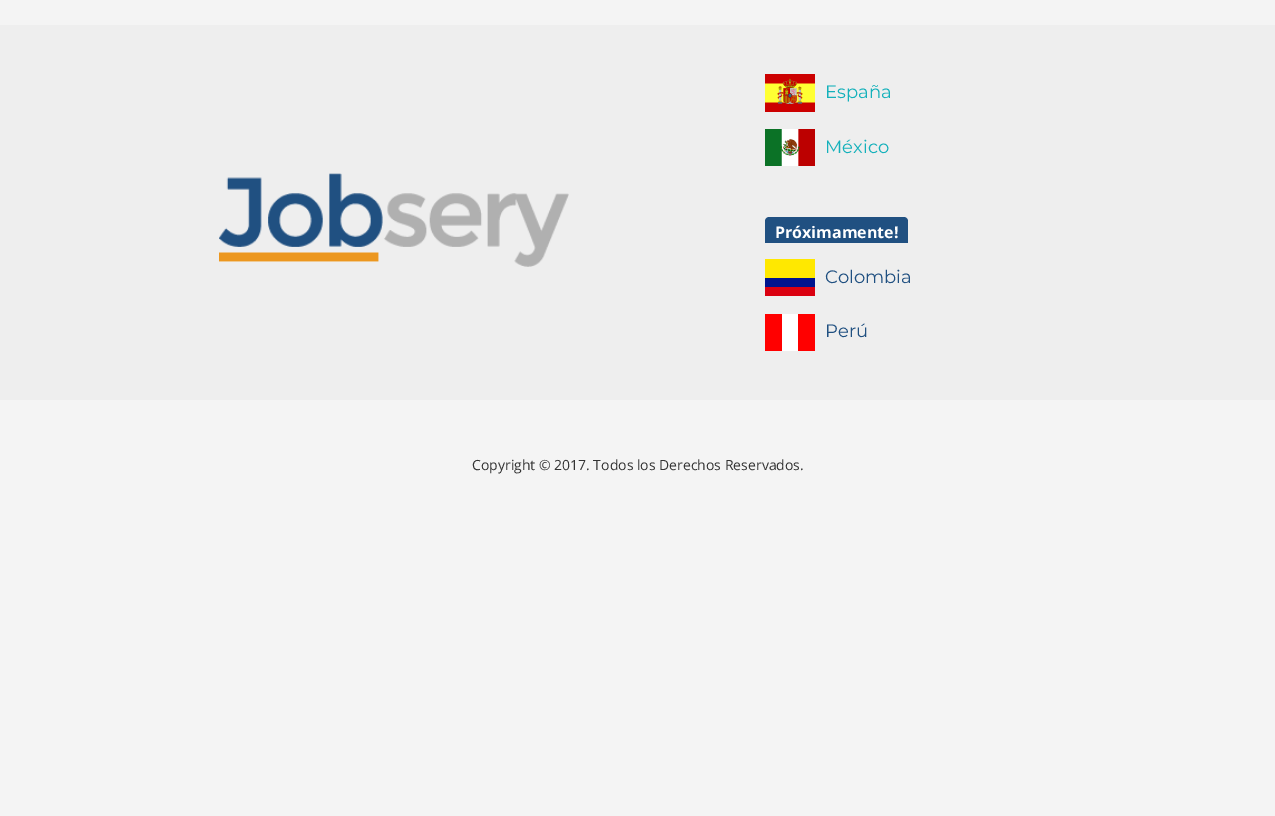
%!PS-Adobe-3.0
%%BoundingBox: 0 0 1275 816
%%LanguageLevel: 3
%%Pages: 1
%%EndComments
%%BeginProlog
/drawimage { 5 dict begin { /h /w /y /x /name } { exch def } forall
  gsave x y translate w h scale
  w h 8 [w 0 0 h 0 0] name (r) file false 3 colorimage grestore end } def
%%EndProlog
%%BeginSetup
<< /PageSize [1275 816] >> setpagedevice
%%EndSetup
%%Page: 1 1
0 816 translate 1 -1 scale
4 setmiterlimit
0.957 setgray
0 0 1275 816 rectfill
0.933 setgray
0 25 1275 375 rectfill
(images/1.raw) 219 173 350 94 drawimage
(images/2.raw) 765 74 50 38 drawimage
(images/3.raw) 765 129 50 37 drawimage
0.125 0.314 0.506 setrgbcolor
newpath 769 217 moveto 904 217 lineto 906 217 908 219 908 221 curveto 908 243 lineto 765 243 lineto 765 221 lineto 765 219 767 217 769 217 curveto closepath fill
1 0.91 0 setrgbcolor
765 259 50 19 rectfill
0 0.078 0.557 setrgbcolor
765 278 50 9 rectfill
0.855 0 0.063 setrgbcolor
765 287 50 9 rectfill
1 0 0 setrgbcolor
765 314 17 37 rectfill
1 setgray
782 314 16 37 rectfill
1 0 0 setrgbcolor
798 314 17 37 rectfill
/Montserrat-Regular [18 0 0 -18 0 0] selectfont
0.078 0.694 0.733 setrgbcolor
825 98 moveto (España) show
825 153 moveto (México) show
/OpenSans-Bold [16 0 0 -16 0 0] selectfont
1 setgray
775 238 moveto (Próximamente!) show
/Montserrat-Regular [18 0 0 -18 0 0] selectfont
0.125 0.314 0.506 setrgbcolor
825 283 moveto (Colombia) show
825 337 moveto (Perú) show
/OpenSans-Regular [14 0 0 -14 0 0] selectfont
0.2 setgray
472 470 moveto (Copyright © 2017. Todos los Derechos Reservados.) show
showpage
%%EOF
